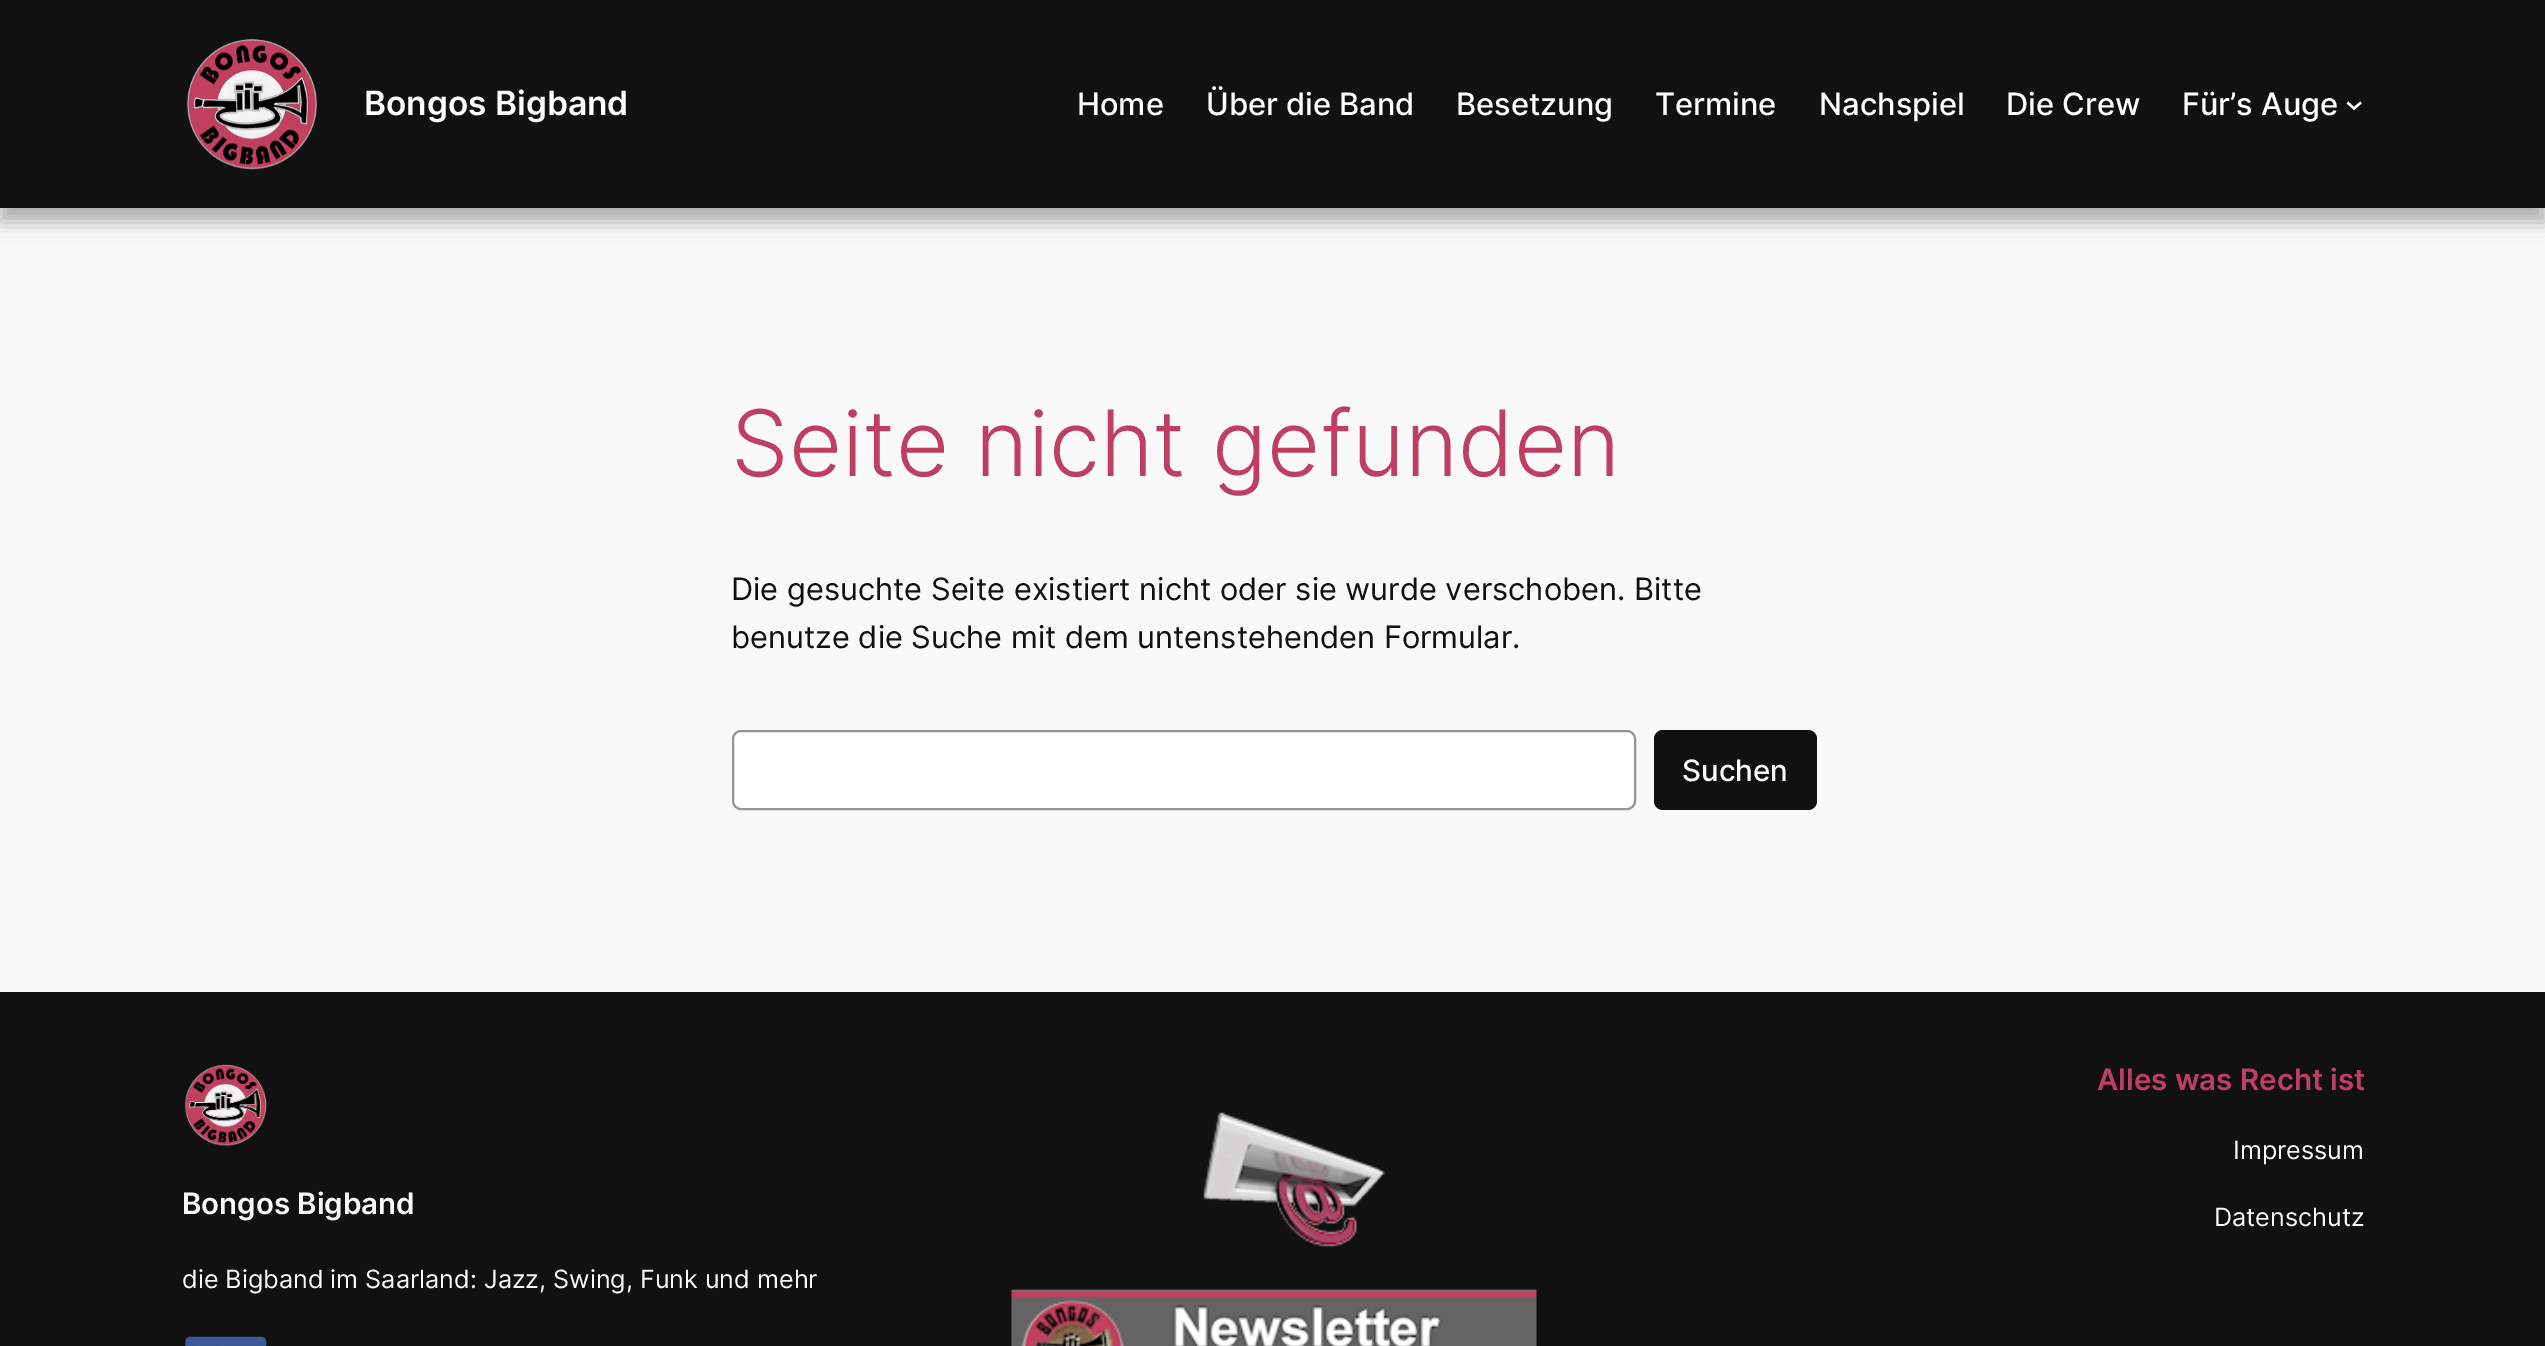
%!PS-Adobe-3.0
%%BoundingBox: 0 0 2545 1346
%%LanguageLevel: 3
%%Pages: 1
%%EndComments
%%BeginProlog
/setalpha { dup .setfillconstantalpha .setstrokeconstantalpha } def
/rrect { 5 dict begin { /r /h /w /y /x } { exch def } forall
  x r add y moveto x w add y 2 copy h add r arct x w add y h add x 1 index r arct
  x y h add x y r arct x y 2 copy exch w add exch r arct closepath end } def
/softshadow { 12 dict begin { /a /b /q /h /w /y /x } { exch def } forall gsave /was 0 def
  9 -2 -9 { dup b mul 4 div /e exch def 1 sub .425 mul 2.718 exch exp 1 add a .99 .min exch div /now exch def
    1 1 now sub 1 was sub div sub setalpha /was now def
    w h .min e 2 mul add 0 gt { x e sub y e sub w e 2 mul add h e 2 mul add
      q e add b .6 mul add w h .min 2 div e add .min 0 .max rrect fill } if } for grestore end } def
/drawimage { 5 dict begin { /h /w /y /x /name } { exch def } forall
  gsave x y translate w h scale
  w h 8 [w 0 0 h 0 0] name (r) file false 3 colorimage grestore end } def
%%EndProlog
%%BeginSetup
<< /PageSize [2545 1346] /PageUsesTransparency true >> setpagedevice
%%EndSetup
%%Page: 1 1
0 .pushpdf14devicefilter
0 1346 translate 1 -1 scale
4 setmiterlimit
0.976 setgray
0 0 2545 1346 rectfill
0 setgray
0 14 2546 208 0 9 0.3 softshadow
0.067 setgray
0 0 2545 208 rectfill
(images/1.raw) 187 39 130 131 drawimage
1 setgray
2.3 setlinewidth
newpath 2347.5 102.5 moveto 2354 108.5 lineto 2361 102.5 lineto stroke
733 731 902 78 8 rrect gsave fill grestore
0.58 setgray
2 setlinewidth
stroke
0.067 setgray
1654 730 163 80 9 rrect fill
0 992 2545 354 rectfill
(images/2.raw) 184 1064 83 82 drawimage
(images/3.raw) 185 1336 82 10 drawimage
(images/4.raw) 1011 1112 526 234 drawimage
/Inter-SemiBold [33.5 0 0 -33.5 0 0] selectfont
1 setgray
364 115 moveto (Bongos Bigband) show
/Inter-Medium [30.8 0 0 -30.8 0 0] selectfont
1077 115 moveto (Home) show
1206 115 moveto (Über die Band) show
1456 115 moveto (Besetzung) show
1655 115 moveto (Termine) show
1819 115 moveto (Nachspiel) show
2006 115 moveto (Die Crew) show
2182 115 moveto (Für’s Auge) show
/Inter-Light [91.5 0 0 -91.5 0 0] selectfont
0.745 0.243 0.392 setrgbcolor
731 476 moveto (Seite nicht gefunden) show
/Inter-Regular [30.8 0 0 -30.8 0 0] selectfont
0.067 setgray
731 600 moveto (Die gesuchte Seite existiert nicht oder sie wurde verschoben. Bitte) show
731 648 moveto (benutze die Suche mit dem untenstehenden Formular.) show
/Inter-Medium [29.5 0 0 -29.5 0 0] selectfont
0.976 setgray
1682 781 moveto (Suchen) show
/Inter-SemiBold [29.5 0 0 -29.5 0 0] selectfont
182 1214 moveto (Bongos Bigband) show
/Inter-Regular [25.2 0 0 -25.2 0 0] selectfont
182 1288 moveto (die Bigband im Saarland: Jazz, Swing, Funk und mehr) show
/Inter-SemiBold [29.5 0 0 -29.5 0 0] selectfont
0.745 0.243 0.392 setrgbcolor
2097 1090 moveto (Alles was Recht ist) show
/Inter-Regular [25.2 0 0 -25.2 0 0] selectfont
0.976 setgray
2233 1159 moveto (Impressum) show
2214 1226 moveto (Datenschutz) show
.poppdf14devicefilter showpage
%%EOF
